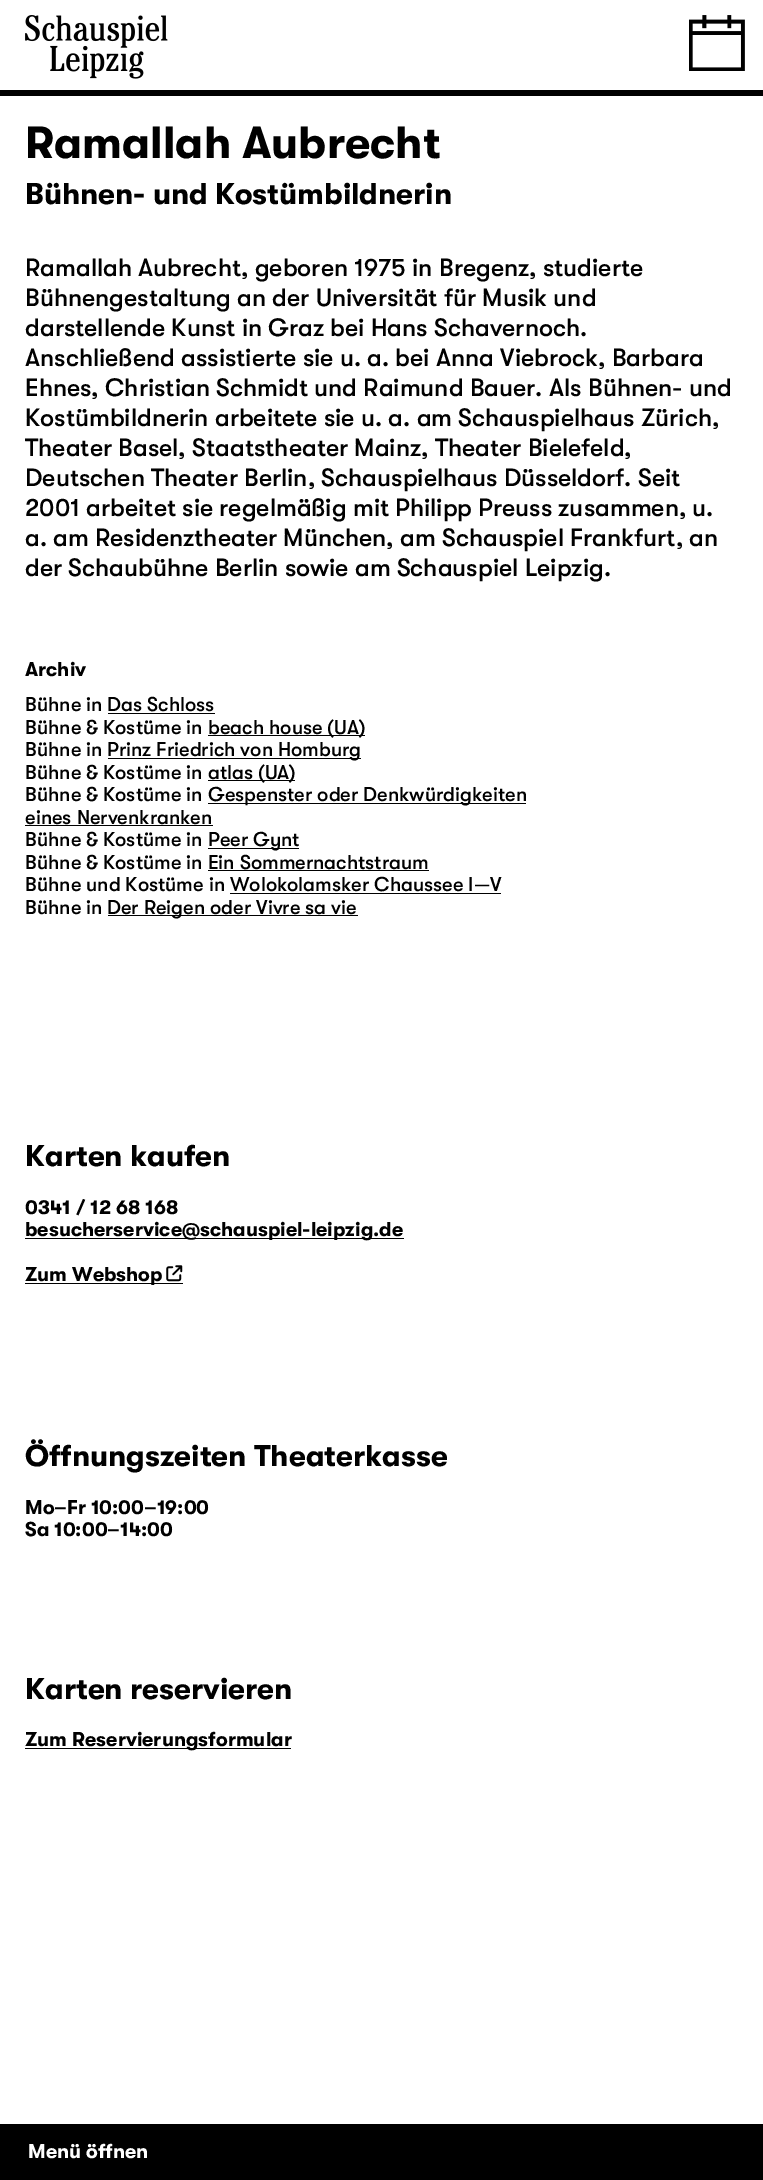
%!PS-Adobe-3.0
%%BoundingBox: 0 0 763 2180
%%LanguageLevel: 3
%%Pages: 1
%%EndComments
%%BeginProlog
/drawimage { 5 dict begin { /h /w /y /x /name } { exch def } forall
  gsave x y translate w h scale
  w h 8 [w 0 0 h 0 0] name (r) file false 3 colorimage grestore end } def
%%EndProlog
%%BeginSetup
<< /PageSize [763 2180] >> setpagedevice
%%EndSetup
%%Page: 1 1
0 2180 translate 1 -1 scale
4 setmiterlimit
1 setgray
0 0 763 2180 rectfill
0 setgray
0 90 763 6 rectfill
(images/1.raw) 25 15 143 64 drawimage
(images/2.raw) 689 15 56 56 drawimage
108 713 107 1 rectfill
208 735 157 1 rectfill
108 758 253 1 rectfill
208 780 87 1 rectfill
208 803 318 1 rectfill
25 825 188 1 rectfill
208 848 91 1 rectfill
208 870 221 1 rectfill
230 893 271 1 rectfill
108 915 250 1 rectfill
25 1238 379 1 rectfill
25 1283 158 1 rectfill
(images/3.raw) 166 1265 17 17 drawimage
25 1748 266 1 rectfill
0 2124 763 56 rectfill
/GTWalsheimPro-Bold [45 0 0 -45 0 0] selectfont
25 158 moveto (Ramallah Aubrecht) show
/GTWalsheimPro-Bold [30 0 0 -30 0 0] selectfont
25 204 moveto (Bühnen- und Kostümbildnerin) show
/GTWalsheimPro-Medium [25 0 0 -25 0 0] selectfont
25 276 moveto (Ramallah Aubrecht, geboren 1975 in Bregenz, studierte) show
25 306 moveto (Bühnengestaltung an der Universität für Musik und) show
25 336 moveto (darstellende Kunst in Graz bei Hans Schavernoch.) show
25 366 moveto (Anschließend assistierte sie u. a. bei Anna Viebrock, Barbara) show
25 396 moveto (Ehnes, Christian Schmidt und Raimund Bauer. Als Bühnen- und) show
25 426 moveto (Kostümbildnerin arbeitete sie u. a. am Schauspielhaus Zürich,) show
25 456 moveto (Theater Basel, Staatstheater Mainz, Theater Bielefeld,) show
25 486 moveto (Deutschen Theater Berlin, Schauspielhaus Düsseldorf. Seit) show
25 516 moveto (2001 arbeitet sie regelmäßig mit Philipp Preuss zusammen, u.) show
25 546 moveto (a. am Residenztheater München, am Schauspiel Frankfurt, an) show
25 576 moveto (der Schaubühne Berlin sowie am Schauspiel Leipzig.) show
/GTWalsheimPro-Bold [20 0 0 -20 0 0] selectfont
25 676 moveto (Archiv) show
/GTWalsheimPro-Medium [20 0 0 -20 0 0] selectfont
25 711 moveto (Bühne in Das Schloss) show
25 734 moveto (Bühne & Kostüme in) show
208 734 moveto (beach house \(UA\)) show
25 756 moveto (Bühne in) show
107 756 moveto (Prinz Friedrich von Homburg) show
25 779 moveto (Bühne & Kostüme in) show
208 779 moveto (atlas \(UA\)) show
25 801 moveto (Bühne & Kostüme in) show
208 801 moveto (Gespenster oder Denkwürdigkeiten) show
25 824 moveto (eines Nervenkranken) show
25 846 moveto (Bühne & Kostüme in) show
208 846 moveto (Peer Gynt) show
25 869 moveto (Bühne & Kostüme in Ein Sommernachtstraum) show
25 891 moveto (Bühne und Kostüme in Wolokolamsker Chaussee I—V) show
25 914 moveto (Bühne in) show
107 914 moveto (Der Reigen oder Vivre sa vie) show
/GTWalsheimPro-Bold [30 0 0 -30 0 0] selectfont
25 1166 moveto (Karten kaufen) show
/GTWalsheimPro-Bold [20 0 0 -20 0 0] selectfont
25 1214 moveto (0341 / 12 68 168) show
25 1236 moveto (besucherservice@schauspiel-leipzig.de) show
25 1281 moveto (Zum Webshop) show
/GTWalsheimPro-Bold [30 0 0 -30 0 0] selectfont
25 1466 moveto (Öffnungszeiten Theaterkasse) show
/GTWalsheimPro-Bold [20 0 0 -20 0 0] selectfont
25 1514 moveto (Mo–Fr 10:00–19:00) show
25 1536 moveto (Sa 10:00–14:00) show
/GTWalsheimPro-Bold [30 0 0 -30 0 0] selectfont
25 1699 moveto (Karten reservieren) show
/GTWalsheimPro-Bold [20 0 0 -20 0 0] selectfont
25 1746 moveto (Zum Reservierungsformular) show
1 setgray
28 2158 moveto (Menü öffnen) show
showpage
%%EOF
